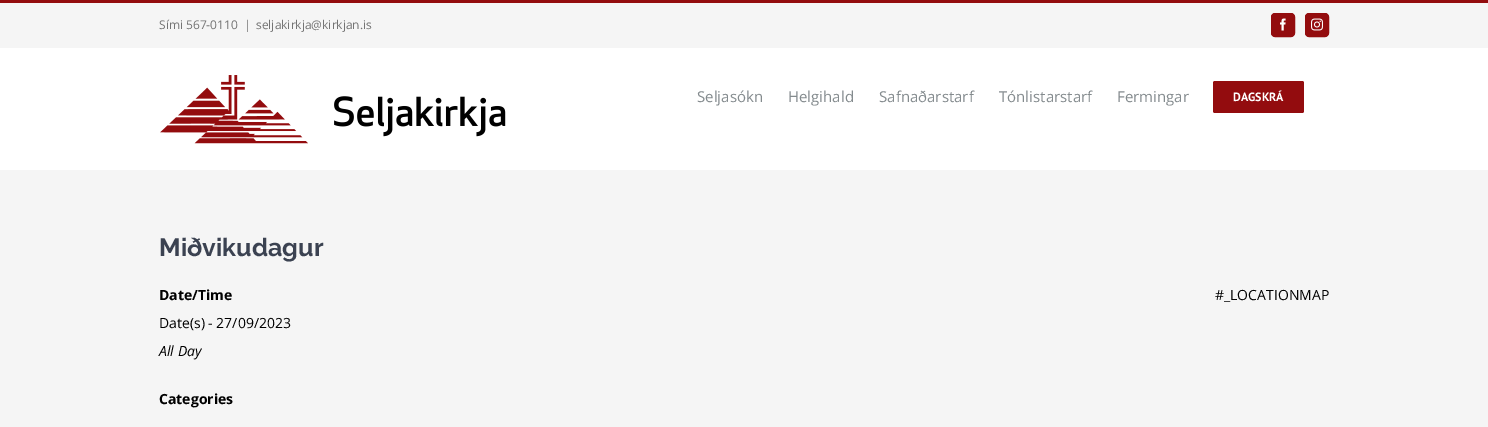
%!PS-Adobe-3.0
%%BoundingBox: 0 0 1488 427
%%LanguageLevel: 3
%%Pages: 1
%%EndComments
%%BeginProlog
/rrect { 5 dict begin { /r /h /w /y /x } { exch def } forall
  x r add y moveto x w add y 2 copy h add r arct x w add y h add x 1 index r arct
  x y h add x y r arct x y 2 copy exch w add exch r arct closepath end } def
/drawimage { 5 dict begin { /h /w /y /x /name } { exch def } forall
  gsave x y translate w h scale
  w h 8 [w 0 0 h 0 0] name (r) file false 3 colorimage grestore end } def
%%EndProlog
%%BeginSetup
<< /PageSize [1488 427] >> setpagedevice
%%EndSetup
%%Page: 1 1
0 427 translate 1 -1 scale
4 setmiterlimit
0.961 setgray
0 0 1488 427 rectfill
0.576 0.047 0.055 setrgbcolor
0 0 1488 3 rectfill
1271.5 13.5 23 23 3.5 rrect gsave fill grestore
stroke
(images/1.raw) 1280 18 6 13 drawimage
1305.5 13.5 23 23 3.5 rrect gsave fill grestore
stroke
(images/2.raw) 1311 18 12 13 drawimage
1 setgray
0 48 1488 122 rectfill
(images/3.raw) 160 75 346 69 drawimage
0.576 0.047 0.055 setrgbcolor
1213 81 91 32 2 rrect fill
/OpenSans-Regular [12 0 0 -12 0 0] selectfont
0.455 setgray
159 29 moveto (Sími 567-0110) show
244 29 moveto (|) show
256 29 moveto (seljakirkja@kirkjan.is) show
/OpenSans-Regular [15 0 0 -15 0 0] selectfont
0.518 0.545 0.557 setrgbcolor
697 102 moveto (Seljasókn) show
788 102 moveto (Helgihald) show
879 102 moveto (Safnaðarstarf) show
999 102 moveto (Tónlistarstarf) show
1117 102 moveto (Fermingar) show
/PTSans-Bold [12 0 0 -12 0 0] selectfont
1 setgray
1233 101 moveto (DAGSKRÁ) show
/Raleway-Thin [25 0 0 -25 0 0] selectfont
0.231 0.259 0.318 setrgbcolor
159 256 moveto (Miðvikudagur) show
/OpenSans-Bold [14 0 0 -14 0 0] selectfont
0 setgray
159 300 moveto (Date/Time) show
/OpenSans-Regular [14 0 0 -14 0 0] selectfont
159 328 moveto (Date\(s\) - 27/09/2023) show
/OpenSans-Italic [14 0 0 -14 0 0] selectfont
159 356 moveto (All Day) show
/OpenSans-Regular [14 0 0 -14 0 0] selectfont
1215 300 moveto (#_LOCATIONMAP) show
/OpenSans-Bold [14 0 0 -14 0 0] selectfont
159 404 moveto (Categories) show
showpage
%%EOF
